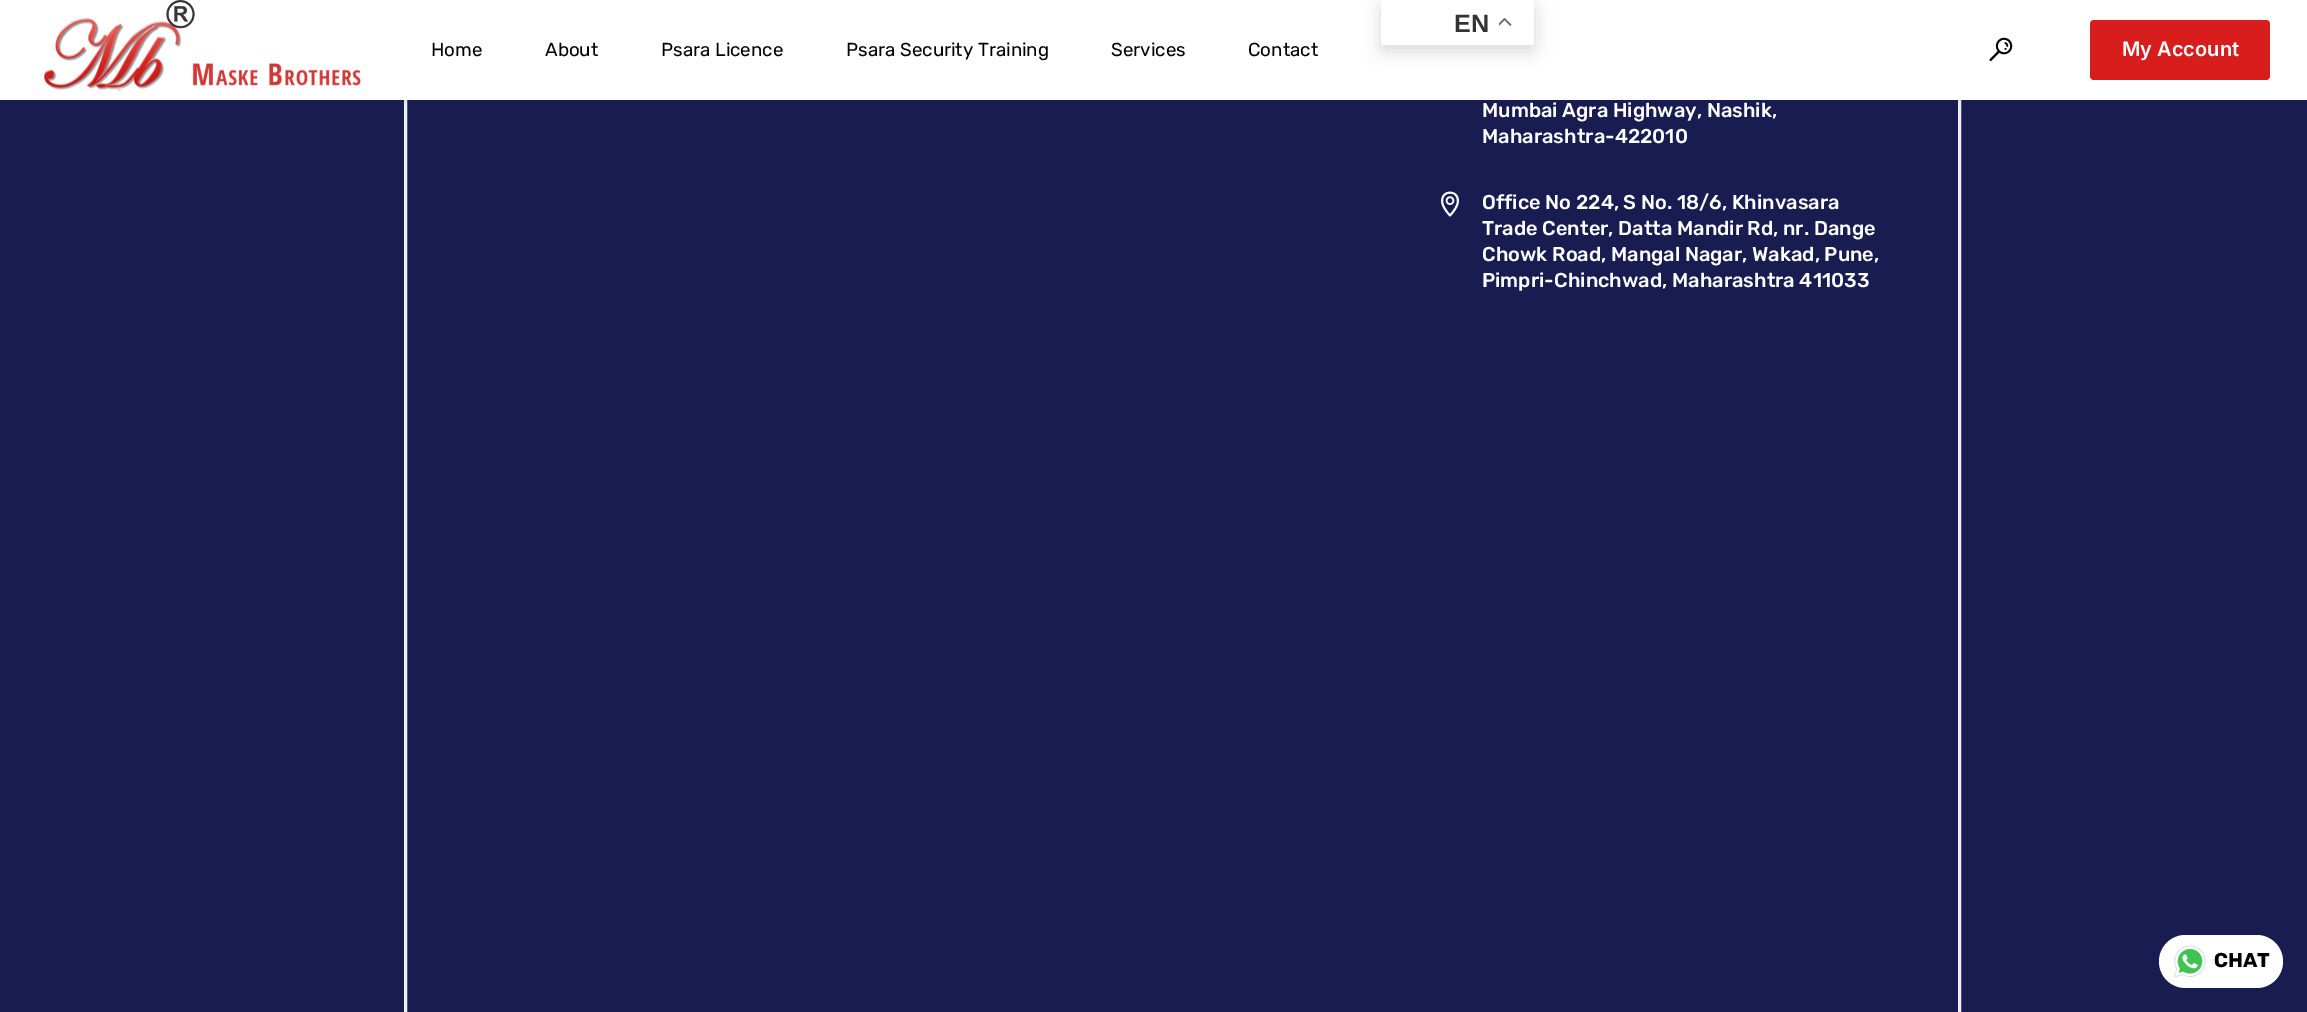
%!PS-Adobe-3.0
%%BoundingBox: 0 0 2307 1012
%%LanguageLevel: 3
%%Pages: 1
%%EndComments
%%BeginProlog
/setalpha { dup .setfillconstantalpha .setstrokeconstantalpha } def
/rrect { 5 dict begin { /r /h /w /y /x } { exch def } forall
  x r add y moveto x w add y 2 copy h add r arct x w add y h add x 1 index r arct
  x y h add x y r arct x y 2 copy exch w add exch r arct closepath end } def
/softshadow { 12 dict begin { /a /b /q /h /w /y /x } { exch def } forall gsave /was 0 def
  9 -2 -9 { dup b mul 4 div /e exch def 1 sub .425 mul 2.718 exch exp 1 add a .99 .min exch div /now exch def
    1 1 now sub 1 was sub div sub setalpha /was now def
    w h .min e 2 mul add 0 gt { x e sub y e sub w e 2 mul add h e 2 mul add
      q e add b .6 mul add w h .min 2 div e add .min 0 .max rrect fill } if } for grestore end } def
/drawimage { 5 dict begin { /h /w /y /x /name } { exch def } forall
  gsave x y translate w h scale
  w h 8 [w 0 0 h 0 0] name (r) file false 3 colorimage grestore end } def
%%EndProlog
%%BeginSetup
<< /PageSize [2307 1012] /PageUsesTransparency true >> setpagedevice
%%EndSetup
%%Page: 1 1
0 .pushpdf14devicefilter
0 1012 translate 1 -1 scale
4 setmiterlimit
0.098 0.11 0.318 setrgbcolor
0 0 2307 1012 rectfill
0.937 setgray
3 setlinewidth
405.5 -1.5 1554 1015 rectstroke
0 setgray
0 0 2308 100 0 3 0.1 softshadow
1 setgray
0 0 2307 100 rectfill
(images/1.raw) 44 0 317 92 drawimage
0 setgray
1381 6 153 45 2.5 9.5 0.15 softshadow
1 setgray
1381 0 153 45 2.5 rrect fill
(images/2.raw) 1499 17 13 9 drawimage
(images/3.raw) 1989 37 24 24 drawimage
0.847 0.114 0.114 setrgbcolor
2090 20 180 60 4 rrect fill
(images/4.raw) 1441 191 18 26 drawimage
1 setgray
2159 935 124 53 26.5 rrect fill
(images/5.raw) 2174 945 32 32 drawimage
/LiberationSans-Bold [25 0 0 -25 0 0] selectfont
0.2 setgray
1454 32 moveto (EN) show
/Rubik-Regular [18.75 0 0 -18.75 0 0] selectfont
0 setgray
431 56 moveto (Home) show
545 56 moveto (About) show
661 56 moveto (Psara Licence) show
846 56 moveto (Psara Security Training) show
1111 56 moveto (Services) show
1248 56 moveto (Contact) show
/Inter-SemiBold [20 0 0 -20 0 0] selectfont
1 setgray
2122 56 moveto (My Account) show
/Rubik-Medium [20 0 0 -20 0 0] selectfont
1482 117 moveto (Mumbai Agra Highway, Nashik,) show
1482 143 moveto (Maharashtra-422010) show
1482 209 moveto (Office No 224, S No. 18/6, Khinvasara) show
1482 235 moveto (Trade Center, Datta Mandir Rd, nr. Dange) show
1482 261 moveto (Chowk Road, Mangal Nagar, Wakad, Pune,) show
1482 287 moveto (Pimpri-Chinchwad, Maharashtra 411033) show
/Rubik-Bold [20 0 0 -20 0 0] selectfont
0 setgray
2214 967 moveto (CHAT) show
.poppdf14devicefilter showpage
%%EOF
